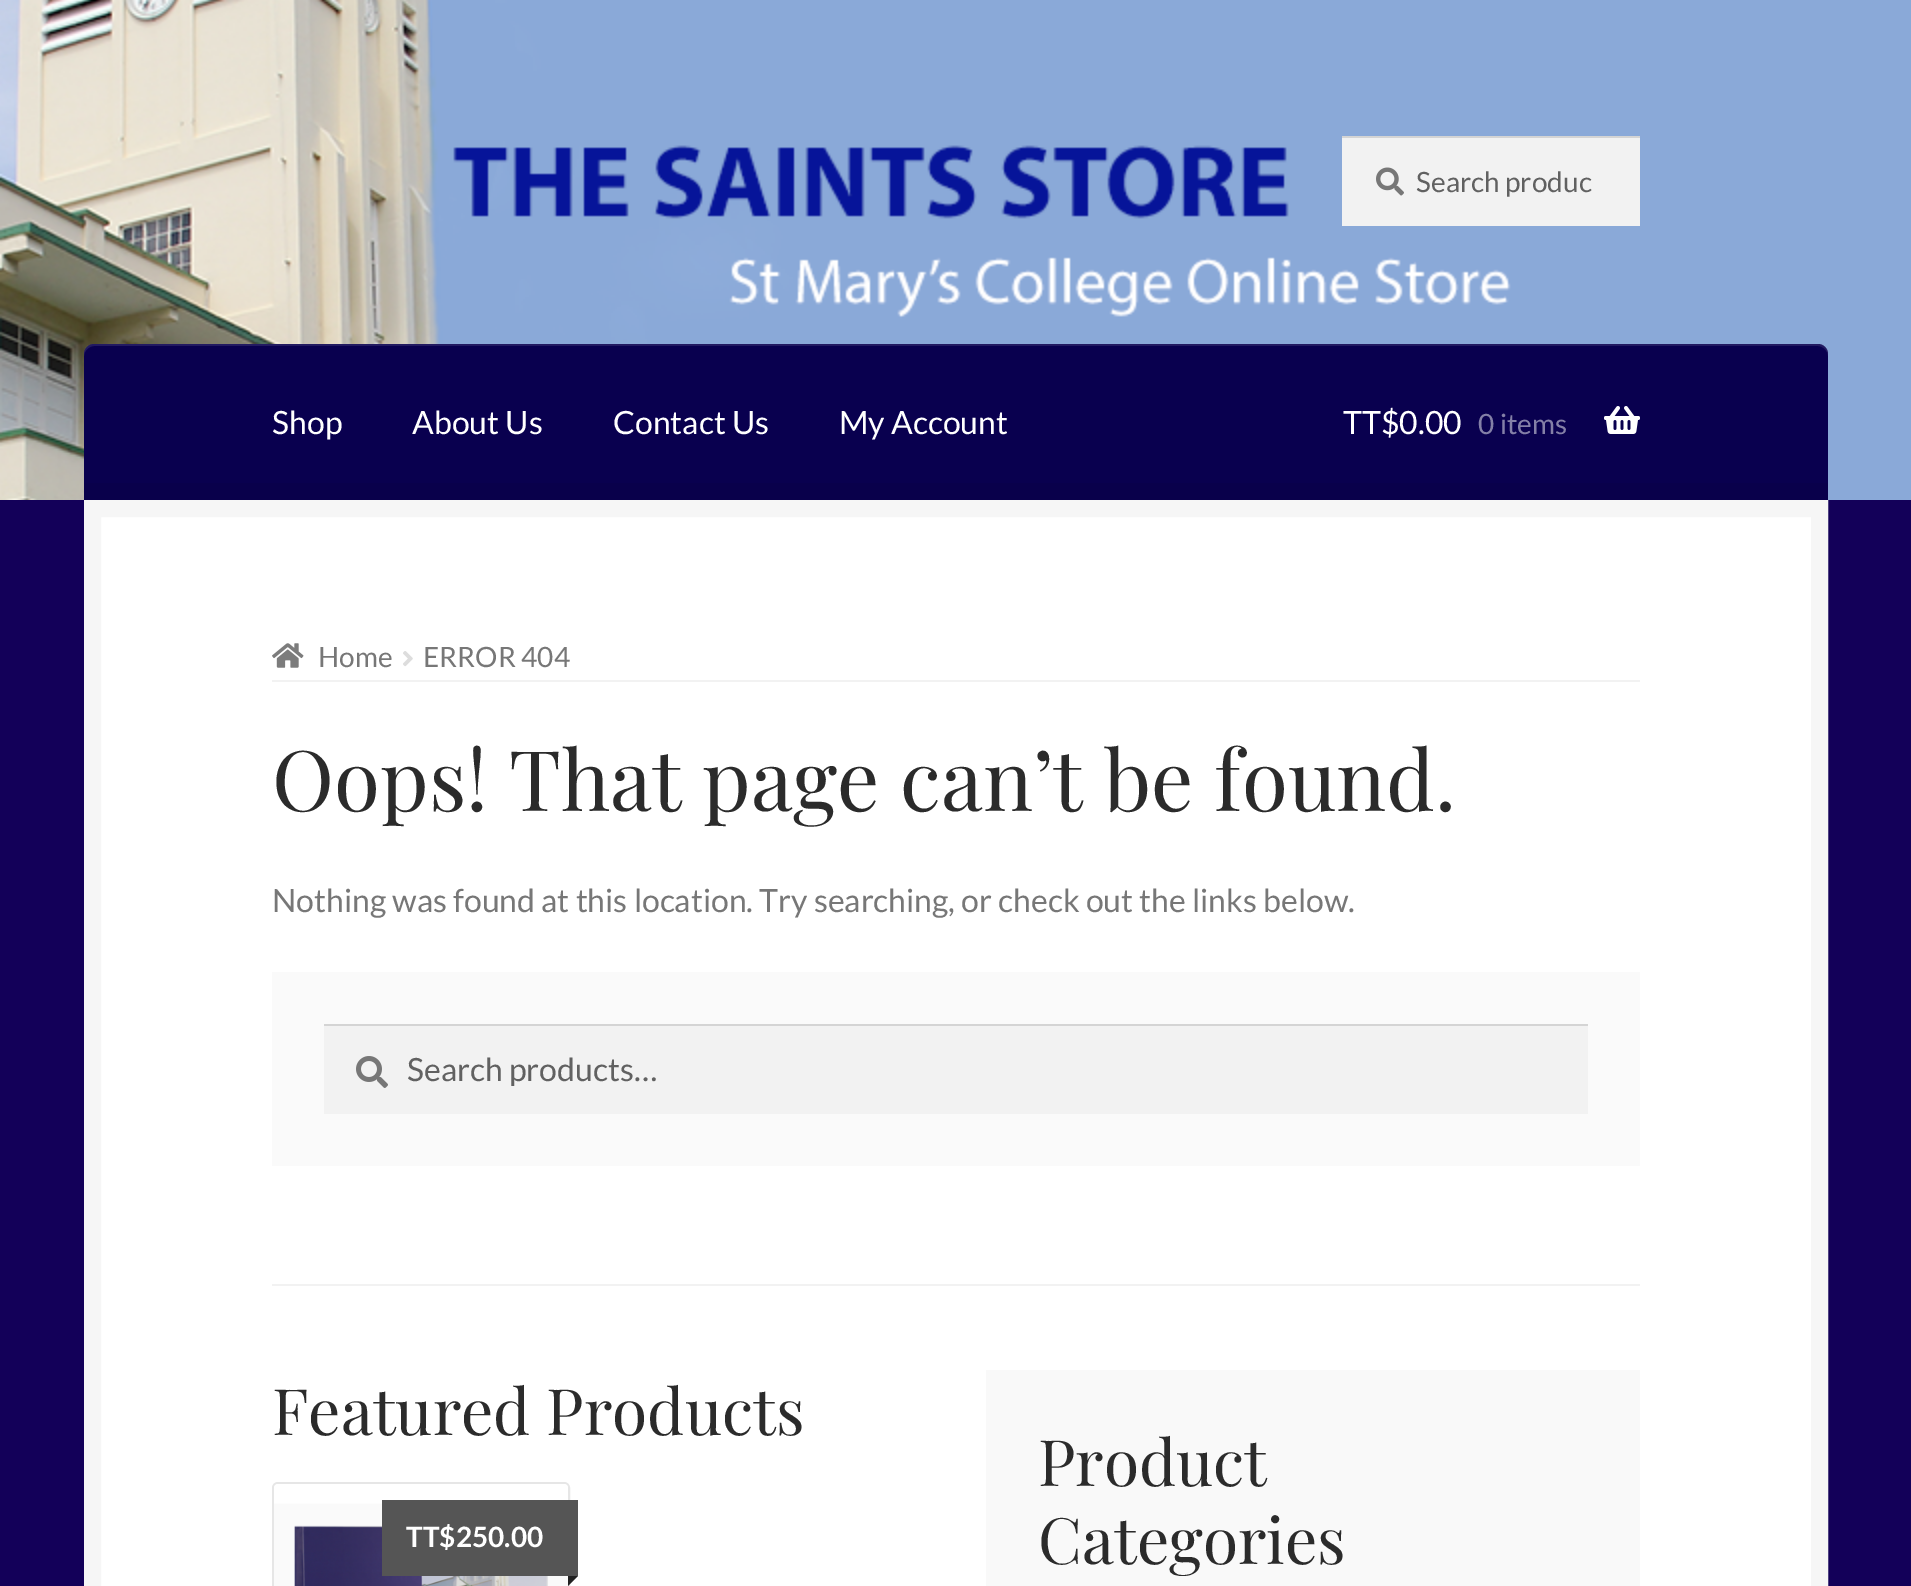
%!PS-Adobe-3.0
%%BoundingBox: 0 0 1911 1586
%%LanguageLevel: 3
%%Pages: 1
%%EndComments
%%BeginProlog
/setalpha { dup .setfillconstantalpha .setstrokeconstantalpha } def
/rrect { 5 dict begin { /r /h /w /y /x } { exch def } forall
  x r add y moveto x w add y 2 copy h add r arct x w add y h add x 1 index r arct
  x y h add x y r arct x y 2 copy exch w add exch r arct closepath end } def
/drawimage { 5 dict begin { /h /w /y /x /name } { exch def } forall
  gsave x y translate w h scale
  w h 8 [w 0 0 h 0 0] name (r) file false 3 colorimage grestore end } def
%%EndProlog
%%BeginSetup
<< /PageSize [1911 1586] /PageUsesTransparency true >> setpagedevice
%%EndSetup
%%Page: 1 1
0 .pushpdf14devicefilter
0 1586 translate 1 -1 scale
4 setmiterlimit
0.075 0 0.349 setrgbcolor
0 0 1911 1586 rectfill
(images/1.raw) 0 0 1911 500 drawimage
0.949 setgray
1342 138 298 88 rectfill
(images/2.raw) 1376 167 28 29 drawimage
0.831 setgray
1342 136 298 2 rectfill
0.035 0 0.31 setrgbcolor
newpath 94 344 moveto 1818 344 lineto 1823.5 344 1828 348.5 1828 354 curveto 1828 500 lineto 84 500 lineto 84 354 lineto 84 348.5 88.5 344 94 344 curveto closepath fill
0.035 0 0.294 setrgbcolor
84 483 1744 17 rectfill
0.1 setalpha
1 setgray
newpath 94 346 moveto 1818 346 lineto 1823 346 1828 351 1828 356 curveto 1828 354 lineto 1828 348 1824 344 1818 344 curveto 94 344 lineto 88 344 84 348 84 354 curveto 84 356 lineto 84 351 89 346 94 346 curveto closepath fill
1 setalpha
(images/3.raw) 1604 406 36 28 drawimage
newpath 92.5 508.5 moveto 1819.5 508.5 lineto 1819.5 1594.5 lineto 92.5 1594.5 lineto closepath gsave fill grestore
0.965 setgray
17 setlinewidth
stroke
0.949 setgray
272 680 1368 2 rectfill
(images/4.raw) 272 643 32 25 drawimage
(images/5.raw) 403 651 10 16 drawimage
0.98 setgray
272 972 1368 194 rectfill
0.949 setgray
324 1026 1264 88 rectfill
(images/6.raw) 356 1056 32 32 drawimage
0.831 setgray
324 1024 1264 2 rectfill
0.949 setgray
272 1284 1368 2 rectfill
0.902 setgray
2 setlinewidth
273 1483 296 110 5 rrect stroke
(images/7.raw) 274 1484 294 102 drawimage
0.333 setgray
382 1500 196 76 rectfill
0.133 setgray
newpath 568 1576 moveto 578 1576 lineto 568 1586 lineto closepath fill
0.976 setgray
986 1370 654 216 rectfill
/Lato-Regular [28 0 0 -28 0 0] selectfont
0.38 setgray
1416 192 moveto (Search produc) show
/Lato-Regular [32 0 0 -32 0 0] selectfont
1 setgray
272 434 moveto (Shop) show
412 434 moveto (About Us) show
613 434 moveto (Contact Us) show
839 434 moveto (My Account) show
1343 434 moveto (TT$0.00) show
/Lato-Regular [28 0 0 -28 0 0] selectfont
0.518 0.502 0.655 setrgbcolor
1478 434 moveto (0 items) show
0.467 setgray
318 667 moveto (Home) show
423 667 moveto (ERROR 404) show
/PlayfairDisplay-Regular [83.75 0 0 -83.75 0 0] selectfont
0.169 setgray
272 811 moveto (Oops! That page can’t be found.) show
/Lato-Regular [32 0 0 -32 0 0] selectfont
0.467 setgray
272 912 moveto (Nothing was found at this location. Try searching, or check out the links below.) show
gsave
408 1048 1152 38 rectclip
0.38 setgray
407 1081 moveto (Search products…) show
grestore
/PlayfairDisplay-Regular [64 0 0 -64 0 0] selectfont
0.169 setgray
272 1435 moveto (Featured Products) show
/Lato-Bold [28 0 0 -28 0 0] selectfont
1 setgray
406 1547 moveto (TT$250.00) show
/PlayfairDisplay-Regular [64 0 0 -64 0 0] selectfont
0.169 setgray
1038 1486 moveto (Product) show
1038 1564 moveto (Categories) show
.poppdf14devicefilter showpage
%%EOF
